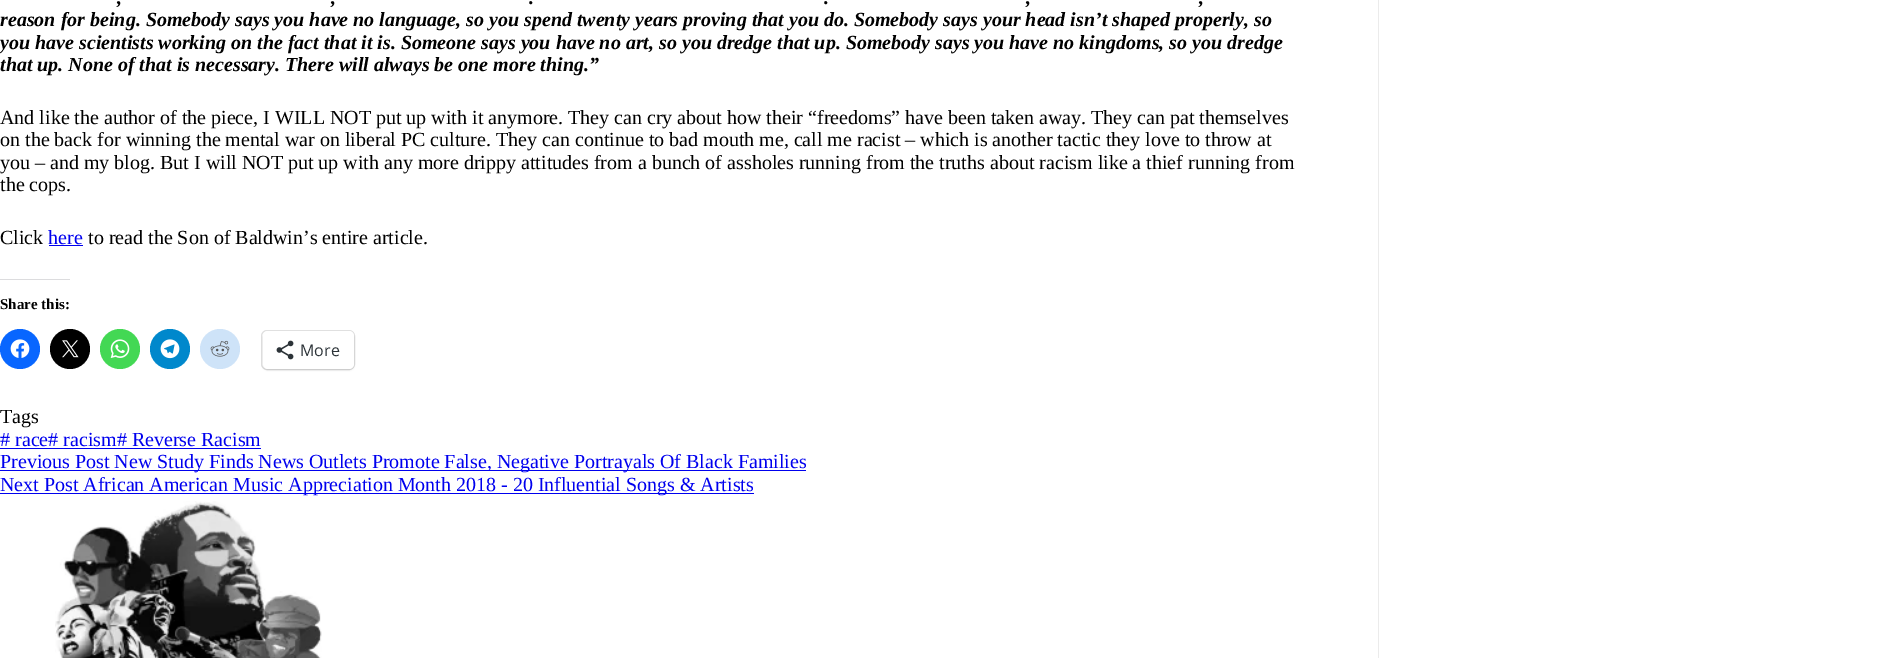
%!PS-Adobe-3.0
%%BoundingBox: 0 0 1886 658
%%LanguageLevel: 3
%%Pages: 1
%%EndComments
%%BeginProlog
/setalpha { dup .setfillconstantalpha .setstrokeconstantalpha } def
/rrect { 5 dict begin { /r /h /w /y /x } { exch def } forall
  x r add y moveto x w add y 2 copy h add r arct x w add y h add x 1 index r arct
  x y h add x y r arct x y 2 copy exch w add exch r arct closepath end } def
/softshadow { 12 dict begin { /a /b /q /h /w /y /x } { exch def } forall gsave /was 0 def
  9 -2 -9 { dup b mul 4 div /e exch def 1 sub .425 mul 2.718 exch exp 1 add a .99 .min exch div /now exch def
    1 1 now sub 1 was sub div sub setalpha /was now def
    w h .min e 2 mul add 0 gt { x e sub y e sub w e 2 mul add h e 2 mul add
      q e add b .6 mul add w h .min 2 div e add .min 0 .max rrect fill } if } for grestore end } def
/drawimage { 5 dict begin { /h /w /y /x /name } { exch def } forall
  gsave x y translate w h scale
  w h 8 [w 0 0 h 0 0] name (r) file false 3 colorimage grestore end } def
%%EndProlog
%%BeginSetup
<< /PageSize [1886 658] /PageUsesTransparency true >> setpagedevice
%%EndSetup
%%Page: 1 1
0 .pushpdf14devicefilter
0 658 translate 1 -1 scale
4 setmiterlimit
1 setgray
0 0 1886 658 rectfill
0 0 0.933 setrgbcolor
49 245 34 1 rectfill
0.863 0.863 0.871 setrgbcolor
0 279 70 1 rectfill
0.031 0.4 1 setrgbcolor
newpath 20 349 20 0 360 arc closepath fill
(images/1.raw) 10 339 20 19 drawimage
0 setgray
newpath 70 349 20 0 360 arc closepath fill
(images/2.raw) 62 340 17 18 drawimage
0.263 0.847 0.329 setrgbcolor
newpath 120 349 20 0 360 arc closepath fill
(images/3.raw) 110 339 20 19 drawimage
0 0.533 0.8 setrgbcolor
newpath 170 349 20 0 360 arc closepath fill
(images/4.raw) 160 339 20 20 drawimage
0.808 0.89 0.973 setrgbcolor
newpath 220 349 20 0 360 arc closepath fill
(images/5.raw) 210 340 20 17 drawimage
0.878 setgray
261.5 330.5 93 39 5.5 rrect stroke
0 setgray
263 333 91 37 5 1 0.12 softshadow
1 setgray
263 331 91 38 5 rrect fill
(images/6.raw) 276 340 18 20 drawimage
0 0 0.933 setrgbcolor
0 448 261 1 rectfill
0 470 806 1 rectfill
0 493 754 1 rectfill
(images/7.raw) 55 501 267 157 drawimage
0.922 setgray
1378 0 1 658 rectfill
/LiberationSerif-BoldItalic [20 0 0 -20 0 0] selectfont
0 setgray
117 4 moveto (,) show
331 4 moveto (,) show
529 4 moveto (.) show
824 4 moveto (.) show
1026 4 moveto (,) show
1199 4 moveto (,) show
0 26 moveto (reason for being. Somebody says you have no language, so you spend twenty years proving that you do. Somebody says your head isn’t shaped properly, so) show
0 49 moveto (you have scientists working on the fact that it is. Someone says you have no art, so you dredge that up. Somebody says you have no kingdoms, so you dredge) show
0 71 moveto (that up. None of that is necessary. There will always be one more thing.”) show
/LiberationSerif-Regular [20 0 0 -20 0 0] selectfont
0 124 moveto (And like the author of the piece, I WILL NOT put up with it anymore. They can cry about how their “freedoms” have been taken away. They can pat themselves) show
0 146 moveto (on the back for winning the mental war on liberal PC culture. They can continue to bad mouth me, call me racist – which is another tactic they love to throw at) show
0 169 moveto (you – and my blog. But I will NOT put up with any more drippy attitudes from a bunch of assholes running from the truths about racism like a thief running from) show
0 191 moveto (the cops.) show
0 244 moveto (Click) show
0 0 0.933 setrgbcolor
48 244 moveto (here) show
0 setgray
88 244 moveto (to read the Son of Baldwin’s entire article.) show
/LiberationSerif-Bold [15 0 0 -15 0 0] selectfont
0 309 moveto (Share this:) show
/OpenSans-Regular [16 0 0 -16 0 0] selectfont
0.173 0.2 0.22 setrgbcolor
300 356 moveto (More) show
/LiberationSerif-Regular [20 0 0 -20 0 0] selectfont
0 setgray
0 423 moveto (Tags) show
0 0 0.933 setrgbcolor
0 446 moveto (# race# racism# Reverse Racism) show
0 468 moveto (Previous Post New Study Finds News Outlets Promote False, Negative Portrayals Of Black Families) show
0 491 moveto (Next Post African American Music Appreciation Month 2018 - 20 Influential Songs & Artists) show
.poppdf14devicefilter showpage
%%EOF
